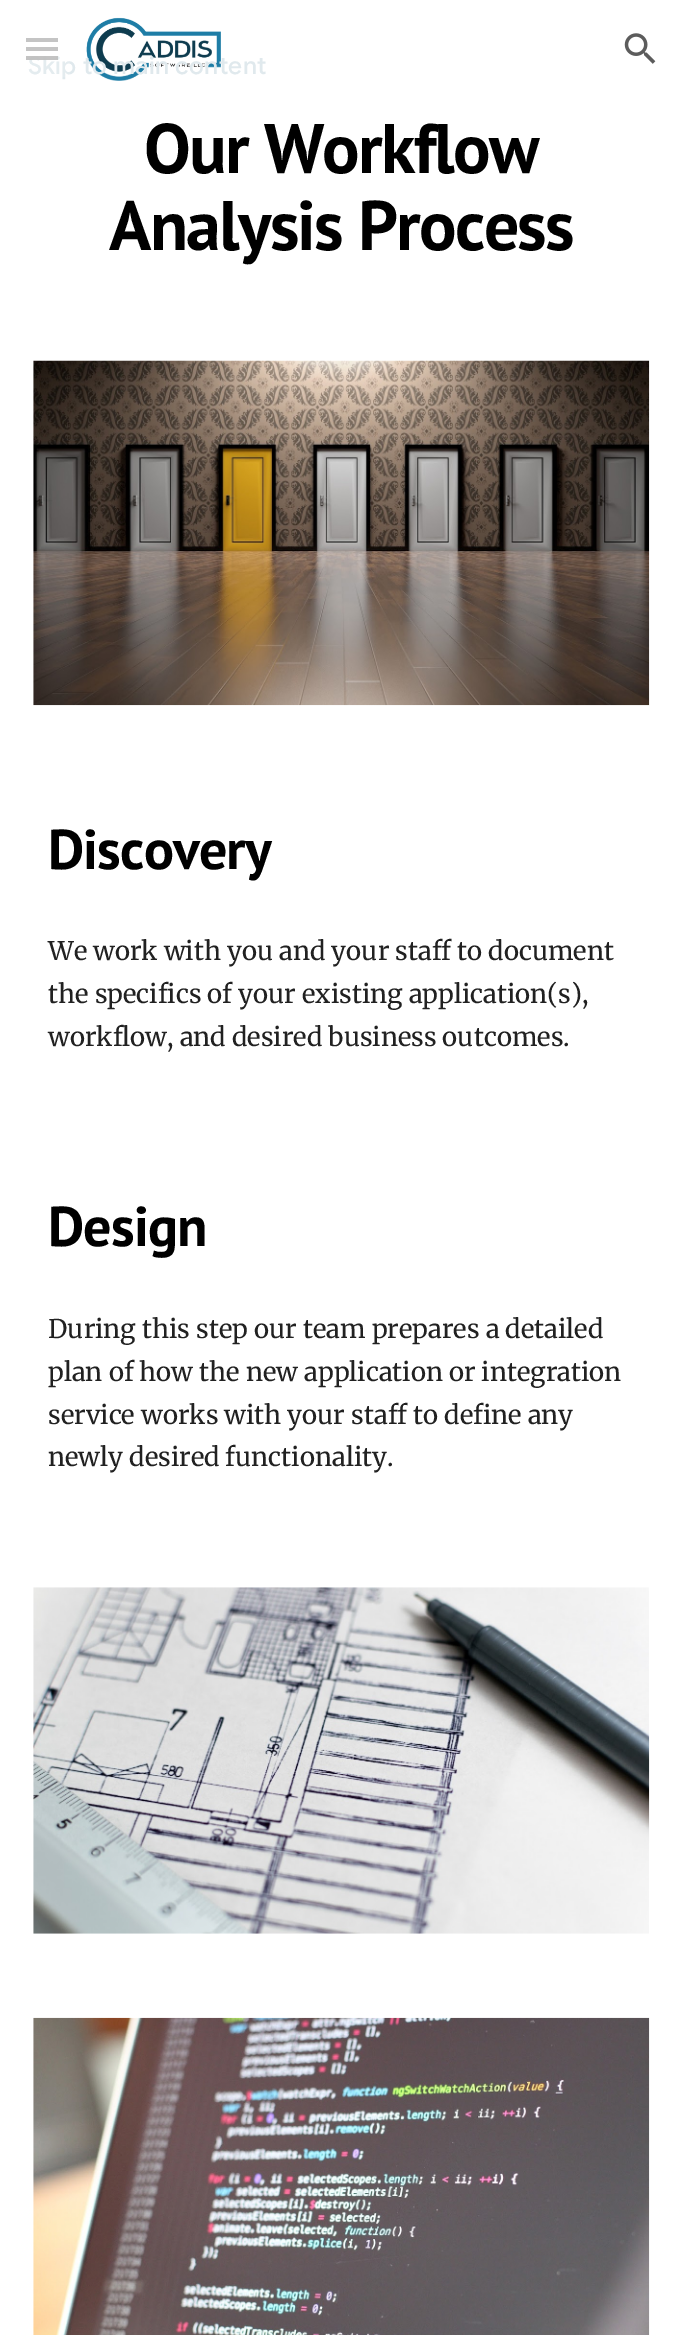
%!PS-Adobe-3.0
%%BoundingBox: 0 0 681 2335
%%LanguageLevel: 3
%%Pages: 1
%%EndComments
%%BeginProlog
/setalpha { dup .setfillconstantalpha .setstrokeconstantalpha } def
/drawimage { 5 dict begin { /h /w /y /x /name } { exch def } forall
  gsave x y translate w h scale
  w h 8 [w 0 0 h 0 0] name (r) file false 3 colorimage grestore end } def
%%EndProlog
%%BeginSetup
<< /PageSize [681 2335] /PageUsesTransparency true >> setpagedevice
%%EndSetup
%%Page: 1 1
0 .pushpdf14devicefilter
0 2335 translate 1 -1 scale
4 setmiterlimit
1 setgray
0 0 681 2335 rectfill
0.737 setgray
26 38 32 4 rectfill
26 47 32 4 rectfill
(images/1.raw) 86 17 135 64 drawimage
(images/2.raw) 624 33 32 31 drawimage
(images/3.raw) 33 360 617 346 drawimage
(images/4.raw) 33 1587 617 347 drawimage
(images/5.raw) 33 2017 617 318 drawimage
/GoogleSans-Medium [24.5 0 0 -24.5 0 0] selectfont
0.878 0.914 0.929 setrgbcolor
28 74 moveto 0.25 0 (Skip to main content) ashow
0.88 setalpha
0.698 setgray
26 56 32 4 rectfill
0.12 setalpha
1 setgray
26 38 44 39 rectfill
/PTSans-Bold [70 0 0 -70 0 0] selectfont
1 setalpha
0 setgray
144 173 moveto -1.75 0 (Our Workflow) ashow
109 250 moveto -1.75 0 (Analysis Process) ashow
/PTSans-Bold [56 0 0 -56 0 0] selectfont
48 869 moveto -0.9 0 (Discovery) ashow
/Merriweather-Regular [25.7 0 0 -25.7 0 0] selectfont
0.129 setgray
48 960 moveto (We work with you and your staff to document) show
48 1003 moveto (the specifics of your existing application\(s\),) show
48 1046 moveto (workflow, and desired business outcomes.) show
/PTSans-Bold [56 0 0 -56 0 0] selectfont
0 setgray
48 1246 moveto -0.9 0 (Design) ashow
/Merriweather-Regular [25.7 0 0 -25.7 0 0] selectfont
0.129 setgray
48 1338 moveto (During this step our team prepares a detailed) show
48 1381 moveto (plan of how the new application or integration) show
48 1424 moveto (service works with your staff to define any) show
48 1466 moveto (newly desired functionality.) show
.poppdf14devicefilter showpage
%%EOF
